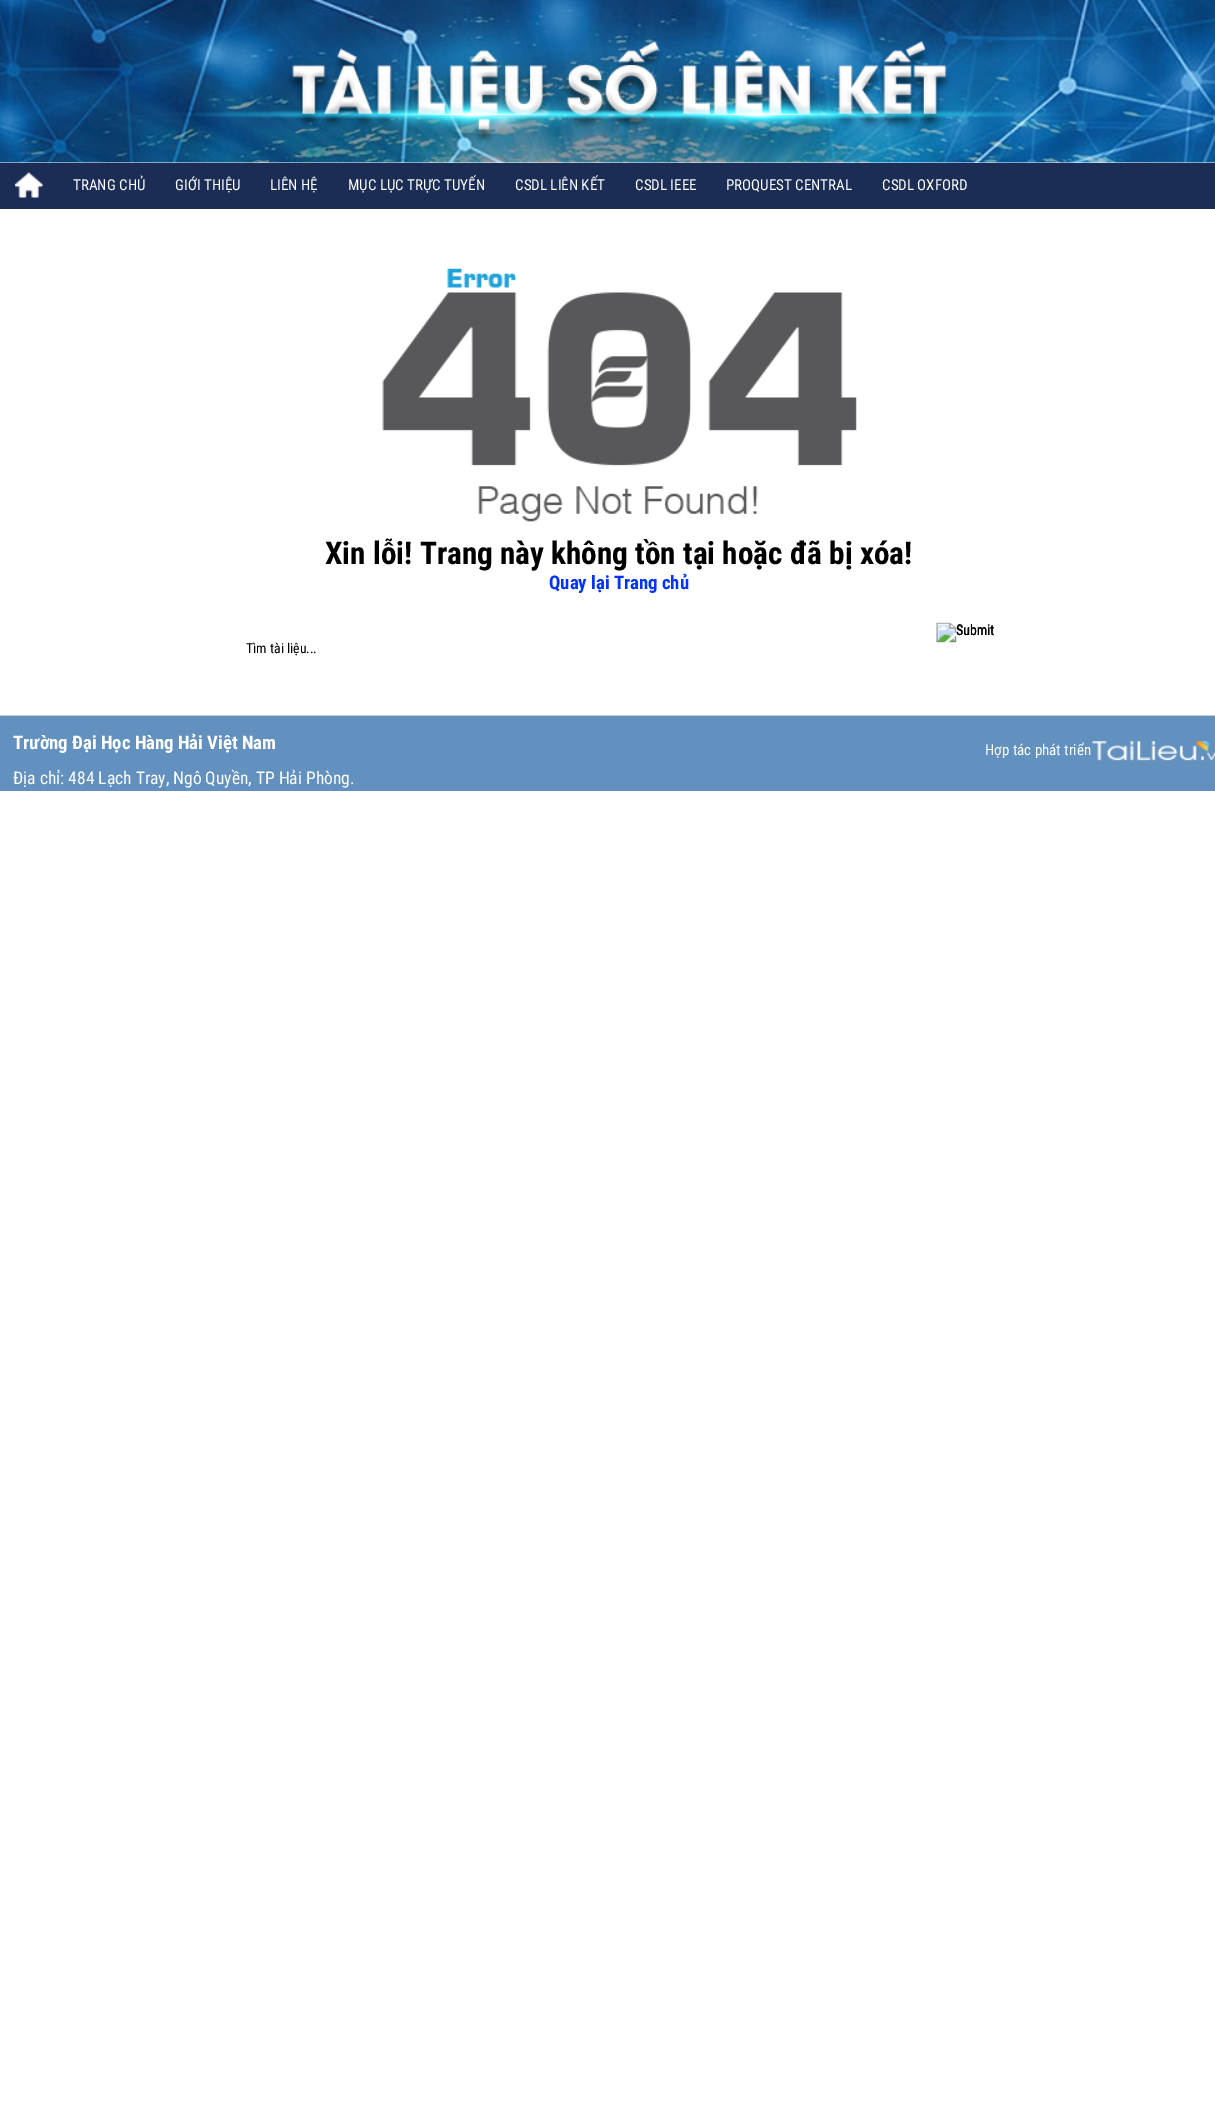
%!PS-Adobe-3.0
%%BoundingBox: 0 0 1215 2111
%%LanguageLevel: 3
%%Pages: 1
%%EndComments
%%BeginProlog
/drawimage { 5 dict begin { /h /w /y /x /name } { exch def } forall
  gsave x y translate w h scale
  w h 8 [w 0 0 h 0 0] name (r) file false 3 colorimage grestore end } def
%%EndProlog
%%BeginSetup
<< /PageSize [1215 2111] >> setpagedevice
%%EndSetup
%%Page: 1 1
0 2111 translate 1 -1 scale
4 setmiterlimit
1 setgray
0 0 1215 2111 rectfill
(images/1.raw) 0 0 1215 163 drawimage
0.106 0.176 0.333 setrgbcolor
0 163 1215 46 rectfill
(images/2.raw) 15 172 28 26 drawimage
(images/3.raw) 382 268 475 254 drawimage
(images/4.raw) 936 622 58 21 drawimage
0.388 0.569 0.749 setrgbcolor
0 716 1215 75 rectfill
0.8 setgray
0 715 1215 1 rectfill
(images/5.raw) 1092 741 123 20 drawimage
/RobotoCondensed-Regular [15 0 0 -15 0 0] selectfont
1 setgray
73 190 moveto (TRANG CHỦ) show
175 190 moveto (GIỚI THIỆU) show
270 190 moveto (LIÊN HỆ) show
348 190 moveto (MỤC LỤC TRỰC TUYẾN) show
515 190 moveto (CSDL LIÊN KẾT) show
635 190 moveto (CSDL IEEE) show
726 190 moveto (PROQUEST CENTRAL) show
882 190 moveto (CSDL OXFORD) show
/RobotoCondensed-Bold [31.25 0 0 -31.25 0 0] selectfont
0 setgray
325 564 moveto (Xin lỗi! Trang này không tồn tại hoặc đã bị xóa!) show
/RobotoCondensed-Bold [18.75 0 0 -18.75 0 0] selectfont
0 0.2 1 setrgbcolor
549 589 moveto (Quay lại Trang chủ) show
/RobotoCondensed-Regular [13.75 0 0 -13.75 0 0] selectfont
0 setgray
956 635 moveto (Submit) show
246 653 moveto (Tìm tài liệu...) show
/RobotoCondensed-Bold [18.75 0 0 -18.75 0 0] selectfont
1 setgray
13 749 moveto (Trường Đại Học Hàng Hải Việt Nam) show
/RobotoCondensed-Regular [17.5 0 0 -17.5 0 0] selectfont
13 784 moveto (Địa chỉ: 484 Lạch Tray, Ngô Quyền, TP Hải Phòng.) show
/RobotoCondensed-Regular [15 0 0 -15 0 0] selectfont
985 755 moveto (Hợp tác phát triển) show
showpage
%%EOF
